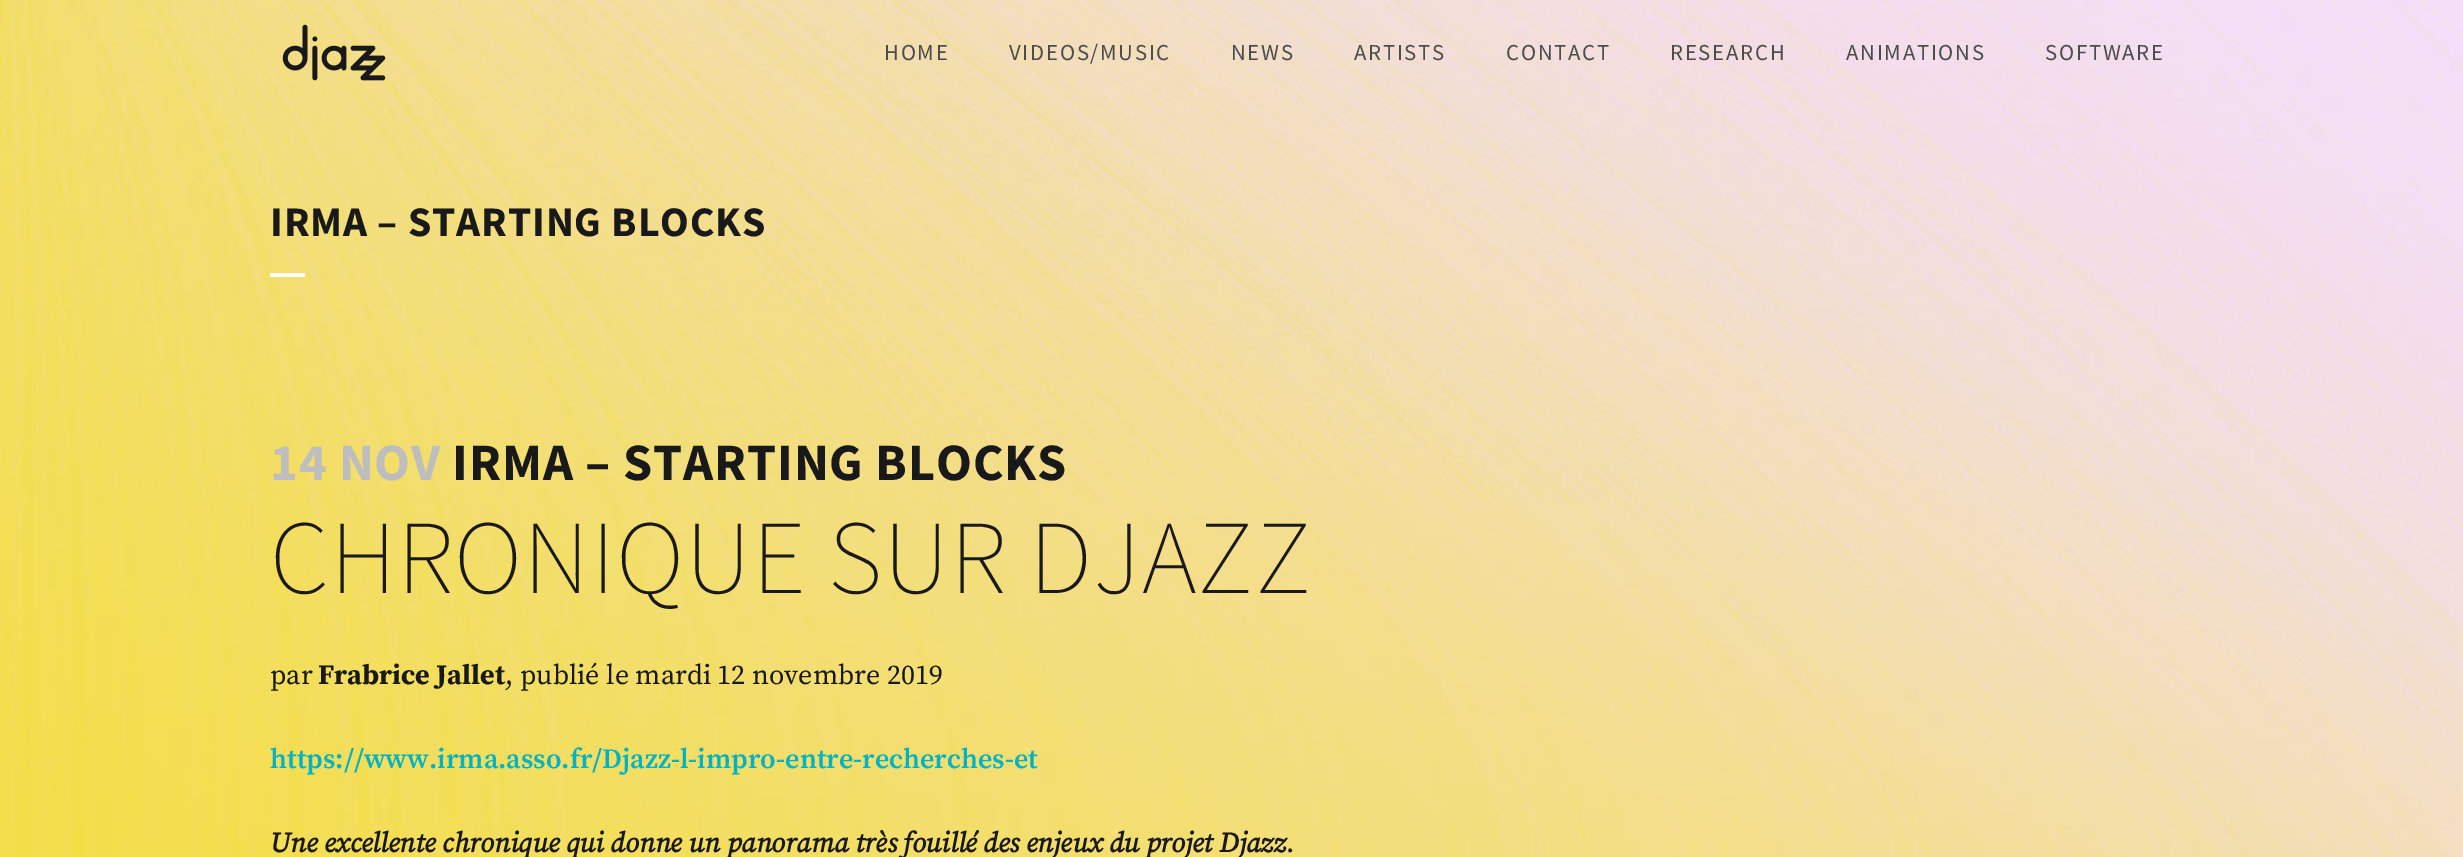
%!PS-Adobe-3.0
%%BoundingBox: 0 0 2463 857
%%LanguageLevel: 3
%%Pages: 1
%%EndComments
%%BeginProlog
/drawimage { 5 dict begin { /h /w /y /x /name } { exch def } forall
  gsave x y translate w h scale
  w h 8 [w 0 0 h 0 0] name (r) file false 3 colorimage grestore end } def
%%EndProlog
%%BeginSetup
<< /PageSize [2463 857] >> setpagedevice
%%EndSetup
%%Page: 1 1
0 857 translate 1 -1 scale
4 setmiterlimit
1 setgray
0 0 2463 857 rectfill
(images/1.raw) 0 0 2463 857 drawimage
(images/2.raw) 282 24 104 57 drawimage
270 273 35 4 rectfill
/SourceSansPro-Regular [22.75 0 0 -22.75 0 0] selectfont
0.298 setgray
884 60 moveto 1.75 0 (HOME) ashow
1009 60 moveto 1.75 0 (VIDEOS/MUSIC) ashow
1231 60 moveto 1.75 0 (NEWS) ashow
1354 60 moveto 1.75 0 (ARTISTS) ashow
1506 60 moveto 1.75 0 (CONTACT) ashow
1670 60 moveto 1.75 0 (RESEARCH) ashow
1846 60 moveto 1.75 0 (ANIMATIONS) ashow
2045 60 moveto 1.75 0 (SOFTWARE) ashow
/SourceSansPro-Bold [42 0 0 -42 0 0] selectfont
0.098 setgray
270 236 moveto 0.9 0 (IRMA – STARTING BLOCKS) ashow
/SourceSansPro-Bold [52.5 0 0 -52.5 0 0] selectfont
0.745 setgray
270 480 moveto 0.9 0 (14 NOV) ashow
0.098 setgray
452 480 moveto 0.9 0 (IRMA – STARTING BLOCKS) ashow
/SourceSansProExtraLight-ExtraLight [105 0 0 -105 0 0] selectfont
270 593 moveto 0.9 0 (CHRONIQUE SUR DJAZZ) ashow
/SourceSerifPro-Regular [28 0 0 -28 0 0] selectfont
270 684 moveto (par) show
/SourceSerifPro-Bold [28 0 0 -28 0 0] selectfont
318 684 moveto (Frabrice Jallet) show
/SourceSerifPro-Regular [28 0 0 -28 0 0] selectfont
505 684 moveto (, publié le mardi 12 novembre 2019) show
/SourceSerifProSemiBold-SemiBold [28 0 0 -28 0 0] selectfont
0 0.702 0.769 setrgbcolor
270 768 moveto (https://www.irma.asso.fr/Djazz-l-impro-entre-recherches-et) show
/SourceSerifPro-BoldItalic [28 0 0 -28 0 0] selectfont
0.098 setgray
270 852 moveto (Une excellente chronique qui donne un panorama très fouillé des enjeux du projet Djazz) show
/SourceSerifPro-Regular [28 0 0 -28 0 0] selectfont
1286 852 moveto (.) show
showpage
%%EOF
